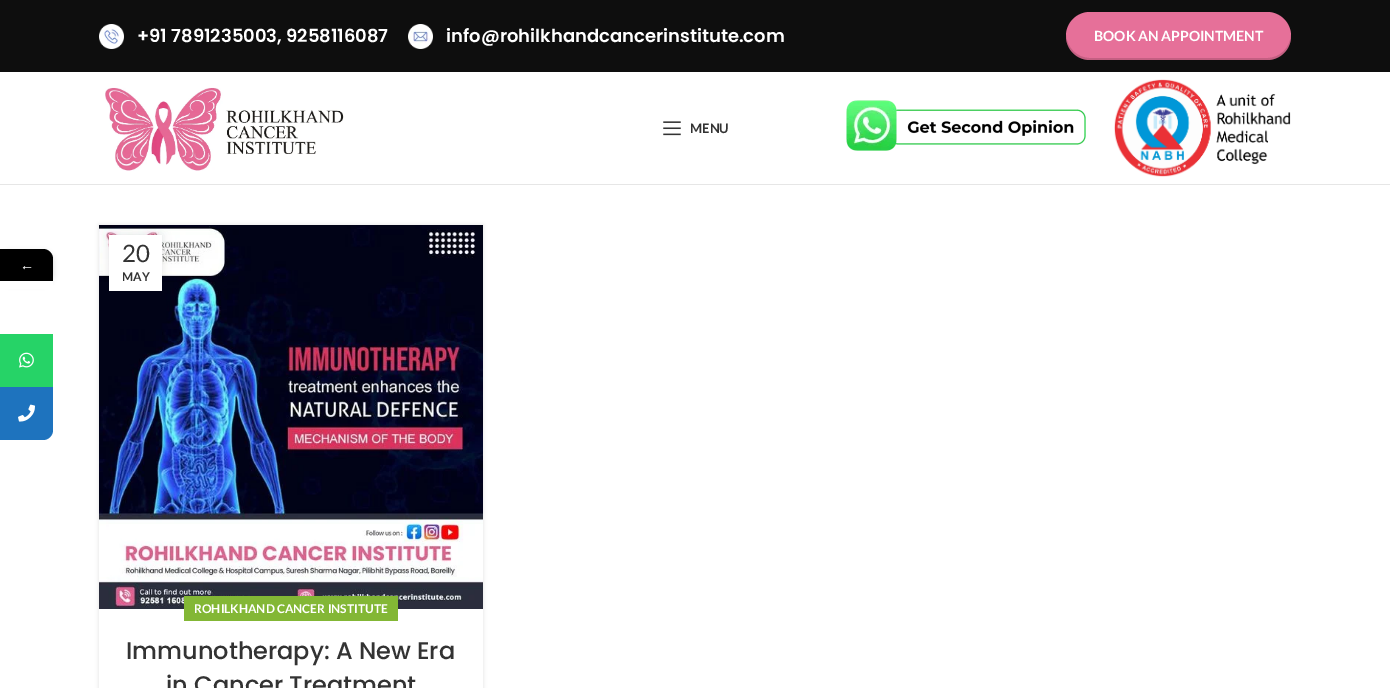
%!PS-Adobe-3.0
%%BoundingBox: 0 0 1390 688
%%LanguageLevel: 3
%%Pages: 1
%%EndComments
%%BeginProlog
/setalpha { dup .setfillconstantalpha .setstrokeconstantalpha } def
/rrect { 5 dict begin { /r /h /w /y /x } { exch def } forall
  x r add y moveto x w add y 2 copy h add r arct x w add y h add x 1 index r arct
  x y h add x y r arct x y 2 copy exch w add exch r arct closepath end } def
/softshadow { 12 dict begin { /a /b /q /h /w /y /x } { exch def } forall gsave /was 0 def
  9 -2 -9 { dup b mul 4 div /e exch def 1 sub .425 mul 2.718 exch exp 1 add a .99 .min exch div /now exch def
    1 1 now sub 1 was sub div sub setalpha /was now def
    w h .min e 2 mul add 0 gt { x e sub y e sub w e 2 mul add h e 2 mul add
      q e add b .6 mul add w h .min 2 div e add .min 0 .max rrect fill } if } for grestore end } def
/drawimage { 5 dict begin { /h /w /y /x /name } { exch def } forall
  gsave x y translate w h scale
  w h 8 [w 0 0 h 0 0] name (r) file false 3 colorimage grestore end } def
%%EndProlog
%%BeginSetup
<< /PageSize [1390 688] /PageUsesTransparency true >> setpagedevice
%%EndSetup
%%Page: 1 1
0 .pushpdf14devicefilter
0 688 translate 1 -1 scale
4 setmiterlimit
1 setgray
0 0 1390 688 rectfill
0 setgray
0 252 53 32 10 3 0.16 softshadow
newpath 0 249 moveto 43 249 lineto 48.5 249 53 253.5 53 259 curveto 53 281 lineto 0 281 lineto closepath fill
1 setgray
0 281 53 8 rectfill
0.149 0.827 0.404 setrgbcolor
0 334 53 53 rectfill
(images/1.raw) 19 352 15 16 drawimage
0.118 0.451 0.745 setrgbcolor
newpath 0 387 moveto 53 387 lineto 53 430 lineto 53 435.5 48.5 440 43 440 curveto 0 440 lineto closepath fill
(images/2.raw) 18 404 17 18 drawimage
0.055 setgray
0 0 1390 72 rectfill
(images/3.raw) 99 24 25 25 drawimage
(images/4.raw) 408 24 25 25 drawimage
0.902 0.439 0.6 setrgbcolor
1066 12 225 48 24 rrect fill
0.15 setalpha
0 setgray
newpath 1066 35 moveto 1066 36 lineto 1066 49 1077 60 1090 60 curveto 1267 60 lineto 1280 60 1291 49 1291 36 curveto 1291 35 lineto 1290 48 1280 58 1267 58 curveto 1090 58 lineto 1077 58 1067 48 1066 35 curveto closepath fill
1 setalpha
0.902 setgray
0 184 1390 1 rectfill
(images/5.raw) 105 87 239 84 drawimage
(images/6.raw) 663 121 18 15 drawimage
(images/7.raw) 846 100 240 51 drawimage
(images/8.raw) 1114 79 177 98 drawimage
gsave
newpath 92 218 moveto 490 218 lineto 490 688 lineto 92 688 lineto closepath 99 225 moveto 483 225 lineto 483 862 lineto 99 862 lineto closepath eoclip newpath
0 setgray
99 225 384 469 0 2 0.12 softshadow
grestore
(images/9.raw) 99 225 384 384 drawimage
0 setgray
109 235 53 56 0 4.5 0.1 softshadow
1 setgray
109 235 53 56 rectfill
0.514 0.718 0.208 setrgbcolor
184 596 214 25 rectfill
/LiberationSerif-Regular [14 0 0 -14 0 0] selectfont
1 setgray
20 270 moveto (←) show
/Poppins-SemiBold [18 0 0 -18 0 0] selectfont
137 42 moveto (+91 7891235003, 9258116087) show
446 42 moveto (info@rohilkhandcancerinstitute.com) show
/Lato-Bold [14 0 0 -14 0 0] selectfont
1094 41 moveto (BOOK AN APPOINTMENT) show
/Lato-Bold [13 0 0 -13 0 0] selectfont
0.2 setgray
690 133 moveto (MENU) show
/Lato-Regular [24 0 0 -24 0 0] selectfont
122 262 moveto (20) show
/Lato-Bold [12 0 0 -12 0 0] selectfont
122 281 moveto (MAY) show
1 setgray
194 613 moveto (ROHILKHAND CANCER INSTITUTE) show
/Poppins-Medium [24 0 0 -24 0 0] selectfont
0.2 setgray
126 659 moveto (Immunotherapy: A New Era) show
166 693 moveto (in Cancer Treatment) show
.poppdf14devicefilter showpage
%%EOF
